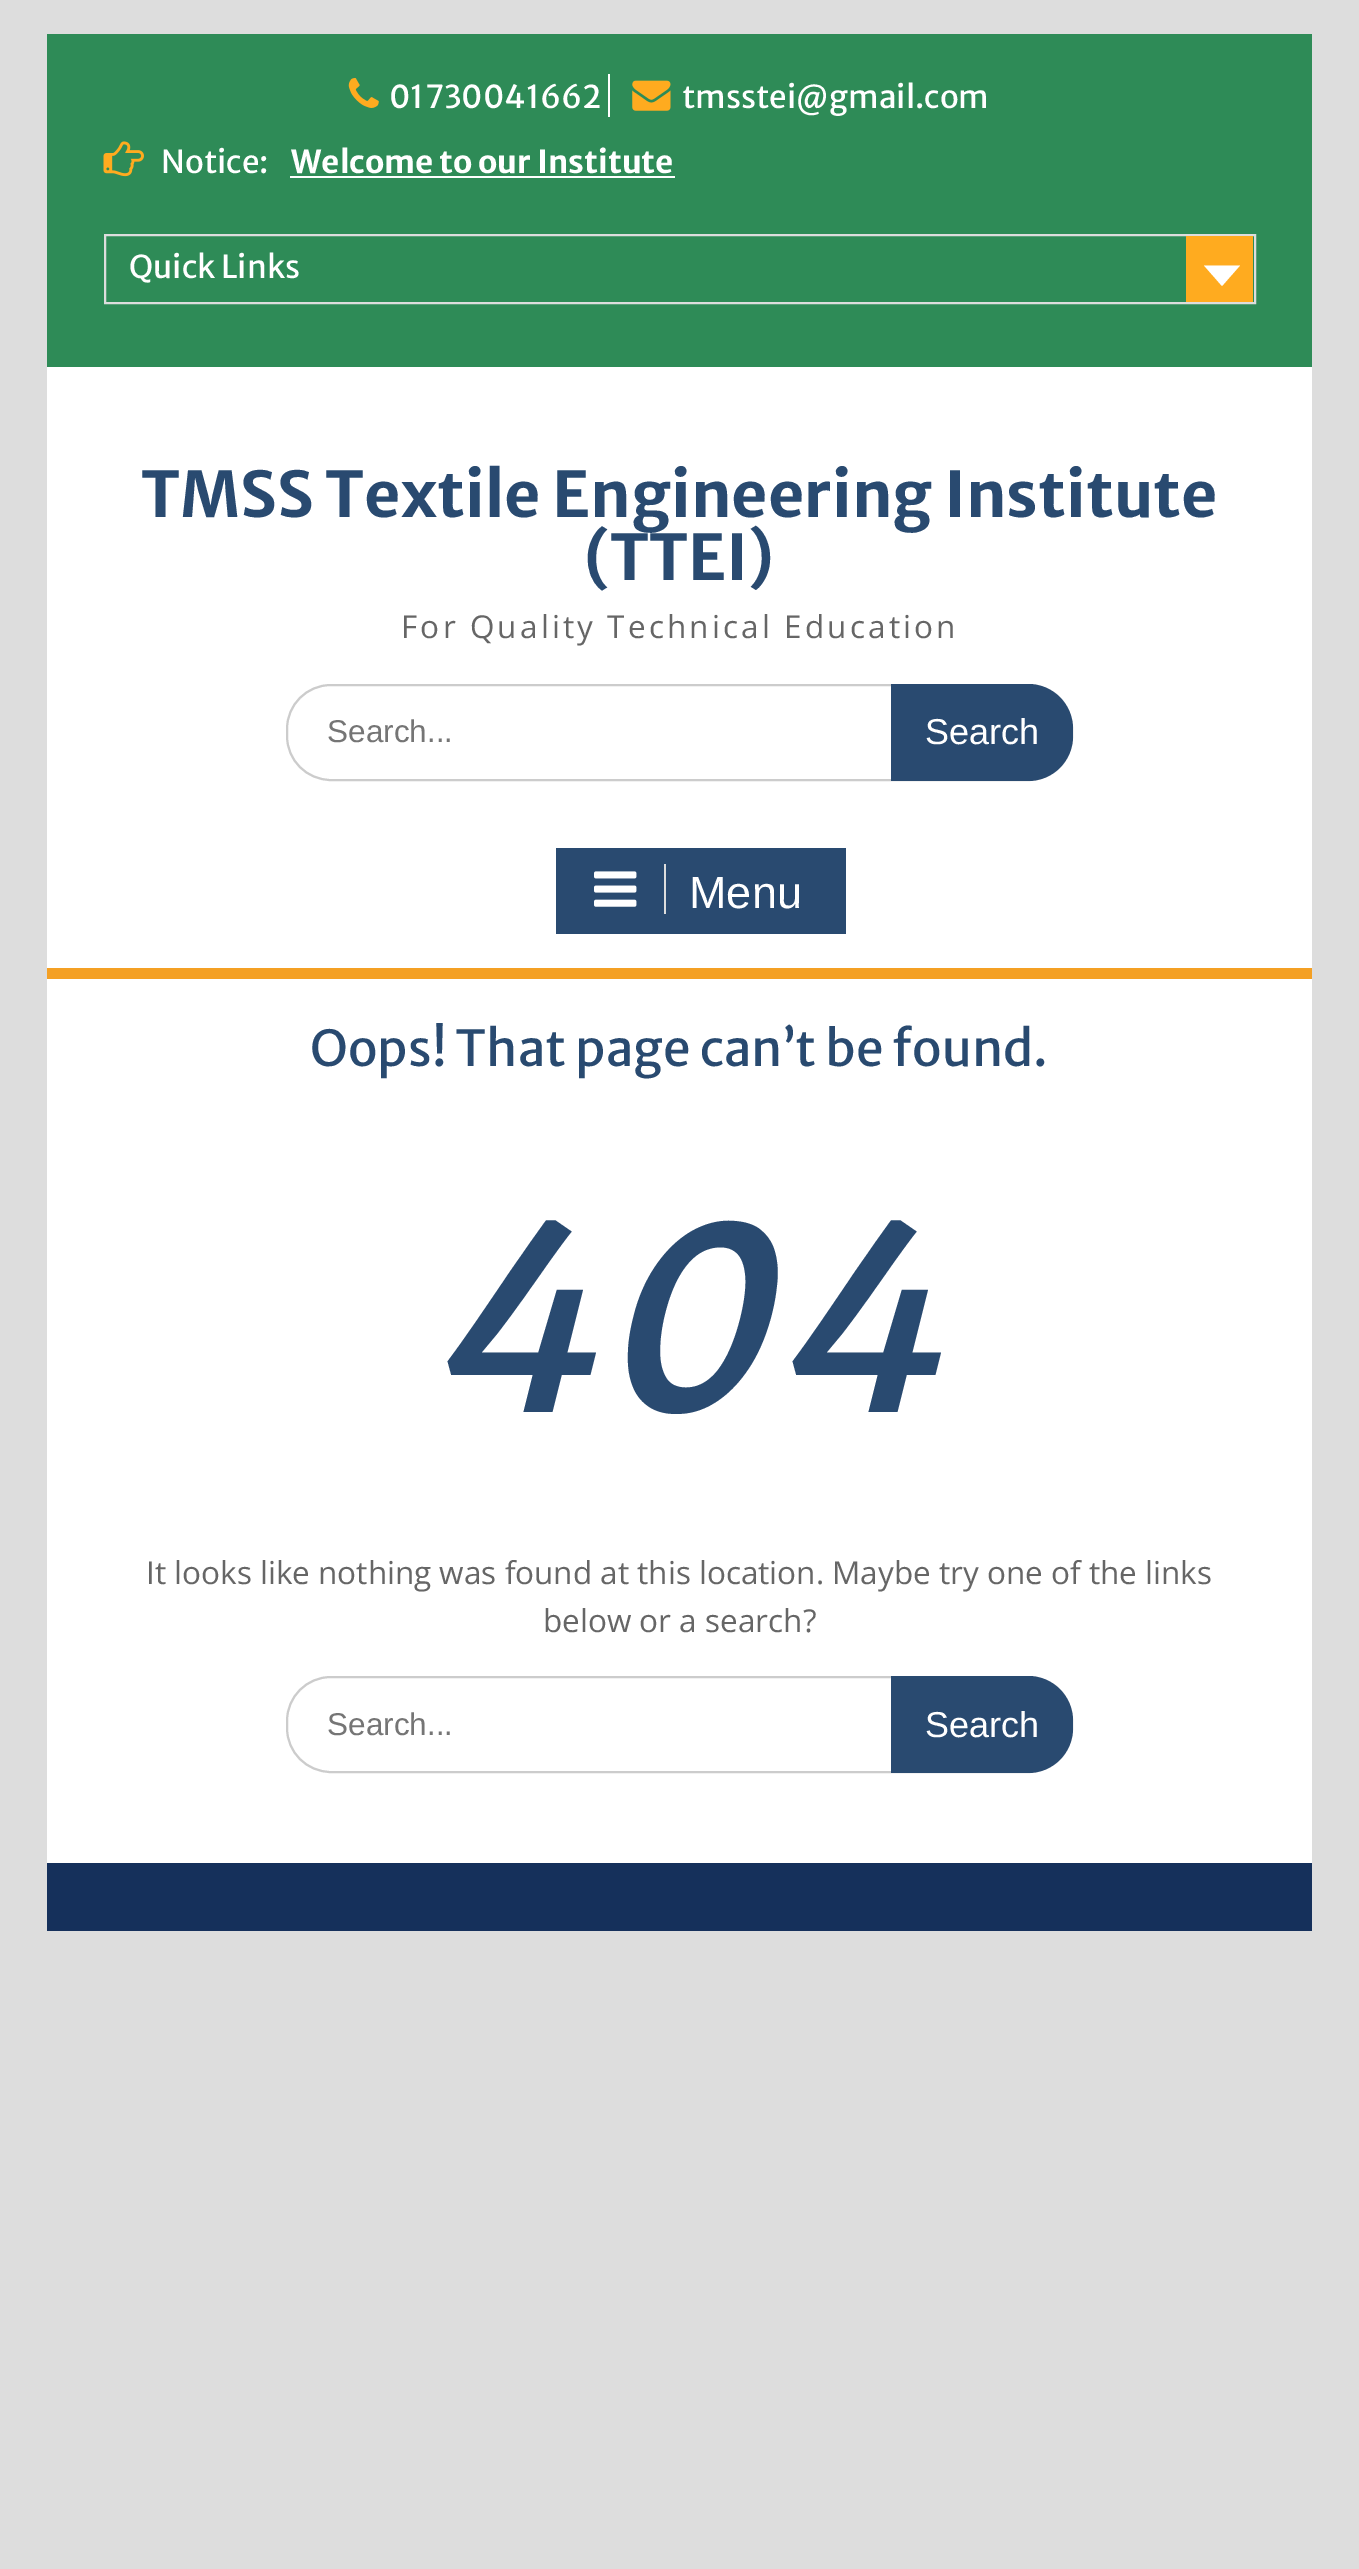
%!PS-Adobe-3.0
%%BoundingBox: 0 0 1359 2569
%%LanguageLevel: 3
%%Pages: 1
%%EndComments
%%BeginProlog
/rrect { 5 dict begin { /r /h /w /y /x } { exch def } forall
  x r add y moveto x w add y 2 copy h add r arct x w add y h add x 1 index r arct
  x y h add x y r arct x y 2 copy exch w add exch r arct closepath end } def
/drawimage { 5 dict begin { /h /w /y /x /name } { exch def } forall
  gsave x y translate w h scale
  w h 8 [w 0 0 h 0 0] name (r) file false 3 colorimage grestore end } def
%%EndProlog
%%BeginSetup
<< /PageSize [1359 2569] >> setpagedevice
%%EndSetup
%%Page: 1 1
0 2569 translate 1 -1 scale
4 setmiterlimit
0.867 setgray
0 0 1359 2569 rectfill
1 setgray
47 367 1265 1496 rectfill
0.18 0.545 0.341 setrgbcolor
47 34 1265 333 rectfill
(images/1.raw) 348 78 31 30 drawimage
1 setgray
608 74 2 43 rectfill
(images/2.raw) 632 80 39 31 drawimage
(images/3.raw) 103 141 41 36 drawimage
290 176 385 2 rectfill
0.867 setgray
2 setlinewidth
105 235 1150 68 rectstroke
1 0.671 0.122 setrgbcolor
1186 236 67 66 rectfill
1 setgray
newpath 1204 265.5 moveto 1240 265.5 lineto 1222 286 lineto closepath fill
0.8 setgray
287 685 785 95 44 rrect stroke
0.161 0.29 0.439 setrgbcolor
newpath 891 684 moveto 1028 684 lineto 1053 684 1073 704 1073 729 curveto 1073 736 lineto 1073 761 1053 781 1028 781 curveto 891 781 lineto closepath fill
0.957 0.627 0.141 setrgbcolor
47 968 1265 11 rectfill
0.161 0.29 0.439 setrgbcolor
556 848 290 86 rectfill
0.867 setgray
664 864 2 50 rectfill
(images/4.raw) 594 871 43 36 drawimage
0.8 setgray
287 1677 785 95 44 rrect stroke
0.161 0.29 0.439 setrgbcolor
newpath 891 1676 moveto 1028 1676 lineto 1053 1676 1073 1696 1073 1721 curveto 1073 1728 lineto 1073 1753 1053 1773 1028 1773 curveto 891 1773 lineto closepath fill
0.082 0.188 0.357 setrgbcolor
47 1863 1265 68 rectfill
/MerriweatherSans-Regular [31.5 0 0 -31.5 0 0] selectfont
1 setgray
389 108 moveto (01730041662) show
682 108 moveto (tmsstei@gmail.com) show
161 173 moveto (Notice:) show
/MerriweatherSans-Bold [31.5 0 0 -31.5 0 0] selectfont
291 173 moveto (Welcome to our Institute) show
/MerriweatherSans-Regular [31.5 0 0 -31.5 0 0] selectfont
129 278 moveto (Quick Links) show
/MerriweatherSans-Bold [63 0 0 -63 0 0] selectfont
0.161 0.29 0.439 setrgbcolor
141 517 moveto (TMSS Textile Engineering Institute) show
584 580 moveto (\(TTEI\)) show
/OpenSans-Regular [31.5 0 0 -31.5 0 0] selectfont
0.4 setgray
401 638 moveto 3.15 0 (For Quality Technical Education) ashow
/LiberationSans-Regular [31.5 0 0 -31.5 0 0] selectfont
0.459 setgray
327 742 moveto (Search...) show
/LiberationSans-Regular [36 0 0 -36 0 0] selectfont
1 setgray
925 744 moveto (Search) show
/LiberationSans-Regular [45 0 0 -45 0 0] selectfont
689 908 moveto (Menu) show
/MerriweatherSans-Regular [49.5 0 0 -49.5 0 0] selectfont
0.161 0.29 0.439 setrgbcolor
310 1066 moveto (Oops! That page can’t be found.) show
/MerriweatherSans-Italic [254 0 0 -254 0 0] selectfont
421 1412 moveto (404) show
/OpenSans-Regular [31.5 0 0 -31.5 0 0] selectfont
0.4 setgray
146 1584 moveto (It looks like nothing was found at this location. Maybe try one of the links) show
543 1632 moveto (below or a search?) show
/LiberationSans-Regular [31.5 0 0 -31.5 0 0] selectfont
0.459 setgray
327 1735 moveto (Search...) show
/LiberationSans-Regular [36 0 0 -36 0 0] selectfont
1 setgray
925 1737 moveto (Search) show
showpage
%%EOF
